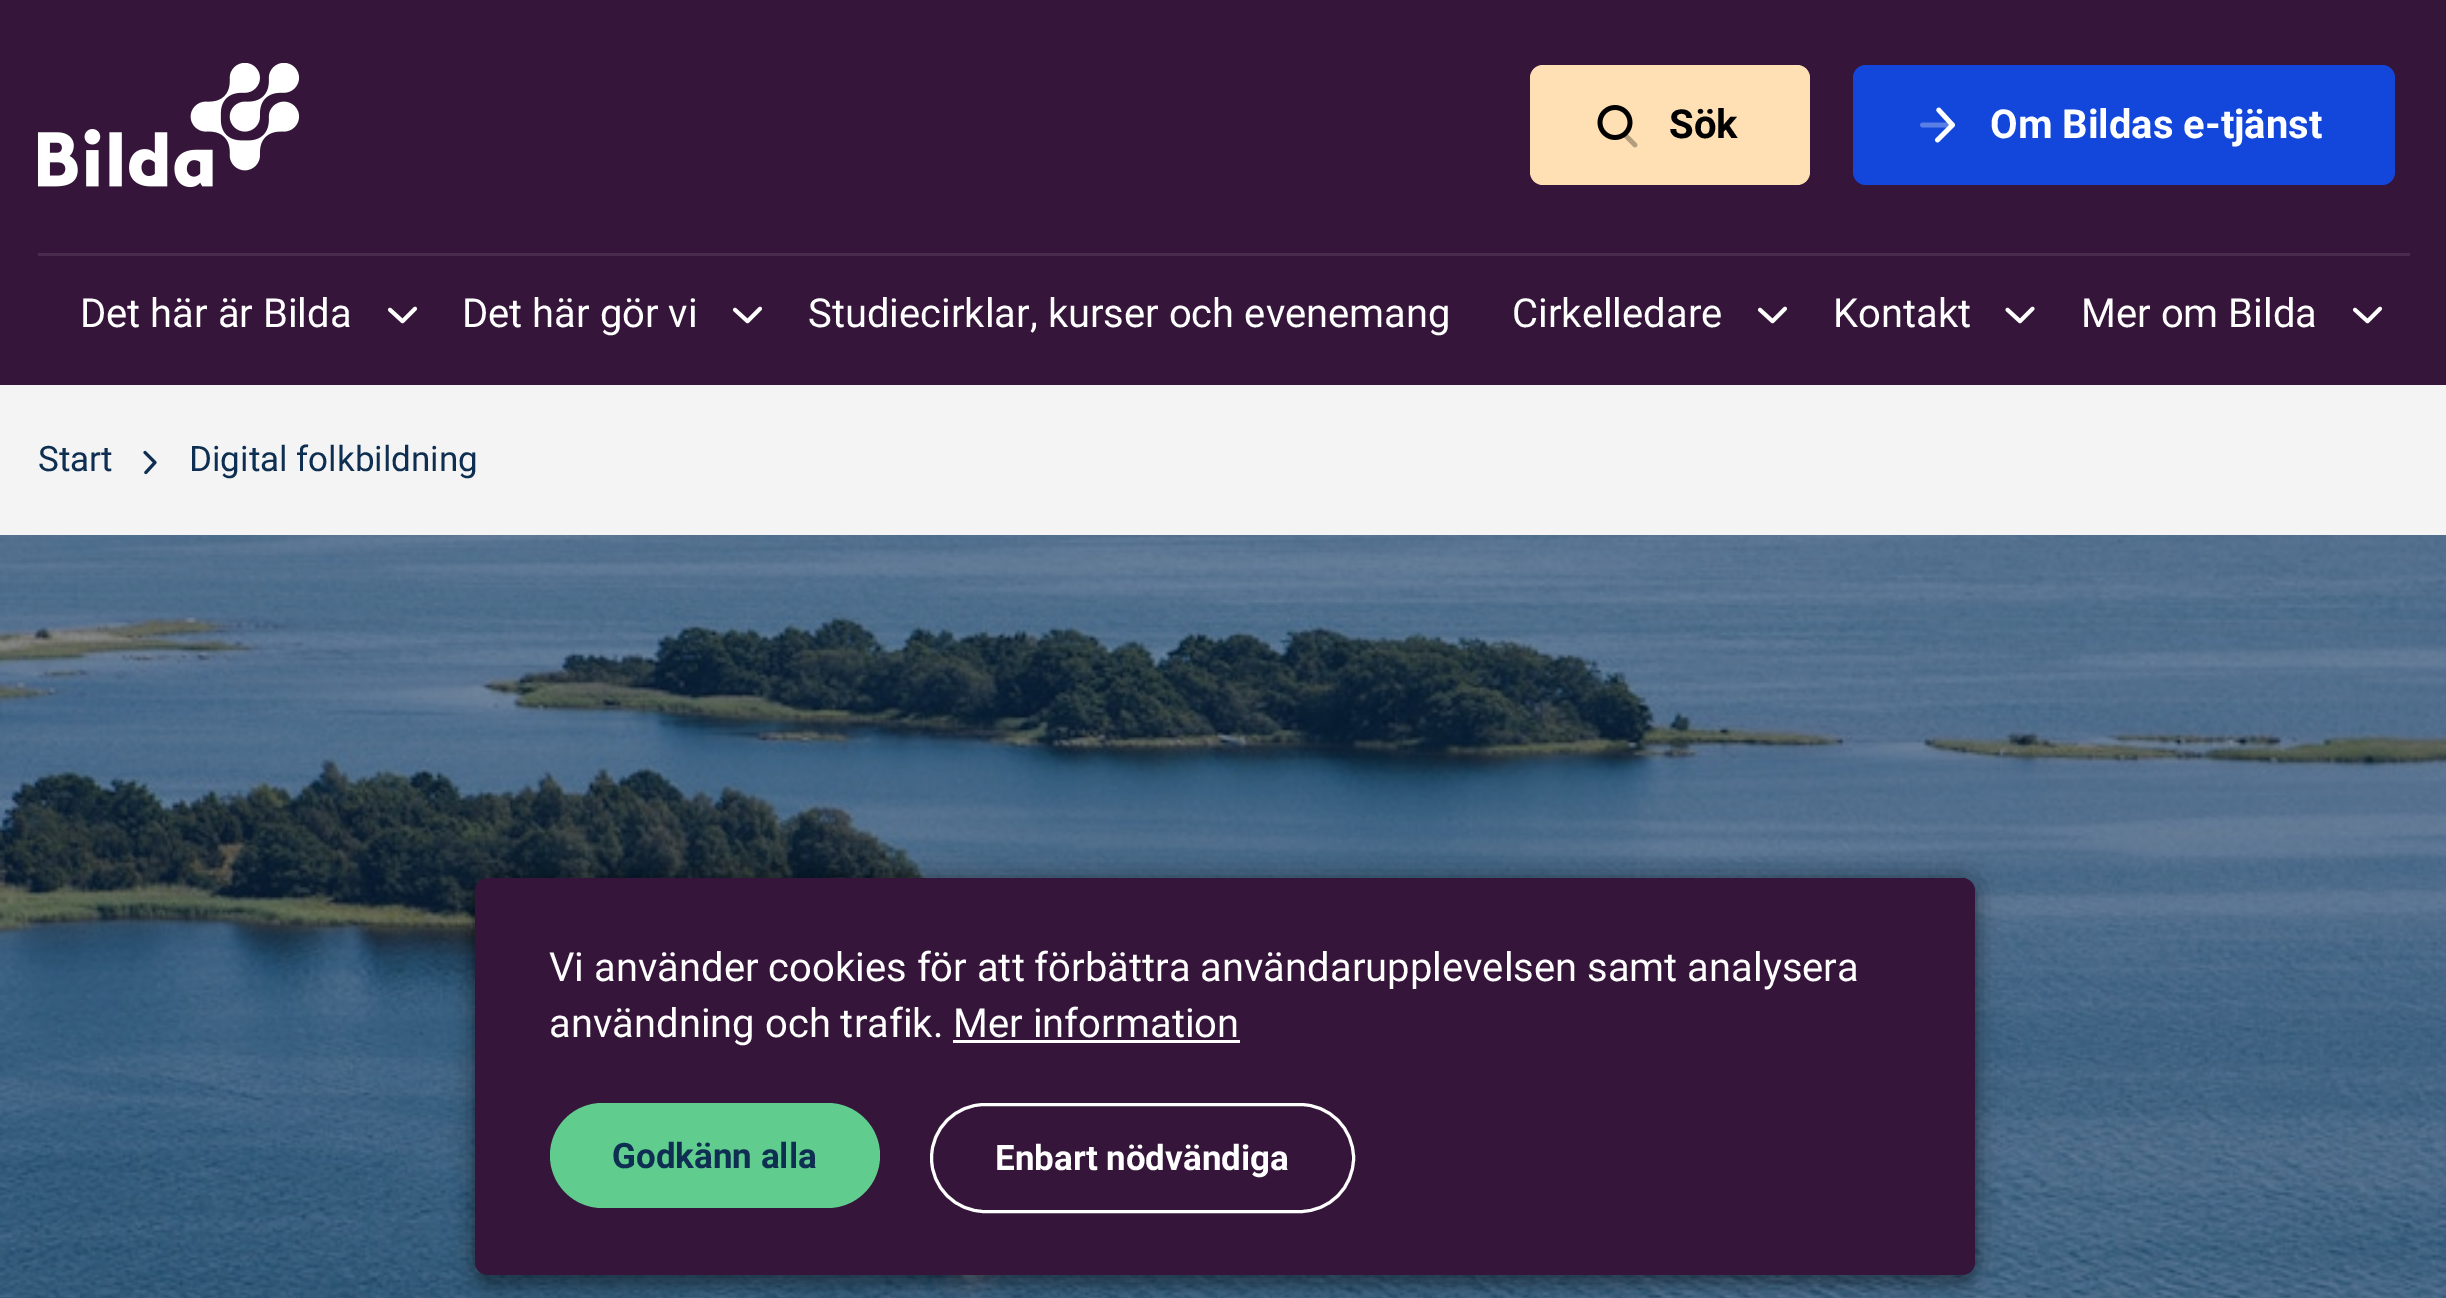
%!PS-Adobe-3.0
%%BoundingBox: 0 0 2446 1298
%%LanguageLevel: 3
%%Pages: 1
%%EndComments
%%BeginProlog
/setalpha { dup .setfillconstantalpha .setstrokeconstantalpha } def
/rrect { 5 dict begin { /r /h /w /y /x } { exch def } forall
  x r add y moveto x w add y 2 copy h add r arct x w add y h add x 1 index r arct
  x y h add x y r arct x y 2 copy exch w add exch r arct closepath end } def
/softshadow { 12 dict begin { /a /b /q /h /w /y /x } { exch def } forall gsave /was 0 def
  9 -2 -9 { dup b mul 4 div /e exch def 1 sub .425 mul 2.718 exch exp 1 add a .99 .min exch div /now exch def
    1 1 now sub 1 was sub div sub setalpha /was now def
    w h .min e 2 mul add 0 gt { x e sub y e sub w e 2 mul add h e 2 mul add
      q e add b .6 mul add w h .min 2 div e add .min 0 .max rrect fill } if } for grestore end } def
/drawimage { 5 dict begin { /h /w /y /x /name } { exch def } forall
  gsave x y translate w h scale
  w h 8 [w 0 0 h 0 0] name (r) file false 3 colorimage grestore end } def
%%EndProlog
%%BeginSetup
<< /PageSize [2446 1298] /PageUsesTransparency true >> setpagedevice
%%EndSetup
%%Page: 1 1
0 .pushpdf14devicefilter
0 1298 translate 1 -1 scale
4 setmiterlimit
0.055 0.18 0.322 setrgbcolor
0 0 2446 1298 rectfill
0.208 0.082 0.224 setrgbcolor
0 0 2446 385 rectfill
(images/1.raw) 38 63 262 125 drawimage
1 0.878 0.706 setrgbcolor
1530 65 280 120 13 rrect fill
(images/2.raw) 1597 105 41 43 drawimage
0.075 0.278 0.859 setrgbcolor
1853 65 542 120 13 rrect fill
(images/3.raw) 1920 107 35 36 drawimage
0.286 0.173 0.302 setrgbcolor
38 253 2372 3 rectfill
(images/4.raw) 387 306 31 18 drawimage
(images/4.raw) 732 306 31 18 drawimage
(images/4.raw) 1757 306 31 18 drawimage
(images/5.raw) 2005 306 30 18 drawimage
(images/4.raw) 2352 306 31 18 drawimage
0.957 setgray
0 385 2446 150 rectfill
(images/6.raw) 143 450 14 25 drawimage
(images/7.raw) 0 535 2446 763 drawimage
0 setgray
475 890 1500 398 13 6 0.2 softshadow
475 878 1500 397 13 12.5 0.4 softshadow
0.208 0.082 0.224 setrgbcolor
475 878 1500 397 13 rrect fill
1 setgray
953 1040 287 3 rectfill
0.376 0.8 0.557 setrgbcolor
550 1103 330 105 52.5 rrect fill
1 setgray
3 setlinewidth
931.5 1104.5 422 107 53.5 rrect stroke
/Roboto-Bold [40 0 0 -40 0 0] selectfont
0 setgray
1669 138 moveto (Sök) show
1 setgray
1990 138 moveto (Om Bildas e-tjänst) show
/Roboto-Regular [40 0 0 -40 0 0] selectfont
80 327 moveto (Det här är Bilda) show
462 327 moveto (Det här gör vi) show
808 327 moveto (Studiecirklar, kurser och evenemang) show
1512 327 moveto (Cirkelledare) show
1833 327 moveto (Kontakt) show
2081 327 moveto (Mer om Bilda) show
/Roboto-Regular [35 0 0 -35 0 0] selectfont
0.055 0.18 0.322 setrgbcolor
38 471 moveto (Start) show
189 471 moveto (Digital folkbildning) show
/Roboto-Regular [40 0 0 -40 0 0] selectfont
1 setgray
549 981 moveto (Vi använder cookies för att förbättra användarupplevelsen samt analysera) show
549 1037 moveto (användning och trafik. Mer information) show
/Roboto-Bold [35 0 0 -35 0 0] selectfont
0.055 0.18 0.322 setrgbcolor
612 1168 moveto (Godkänn alla) show
1 setgray
995 1170 moveto (Enbart nödvändiga) show
.poppdf14devicefilter showpage
%%EOF
